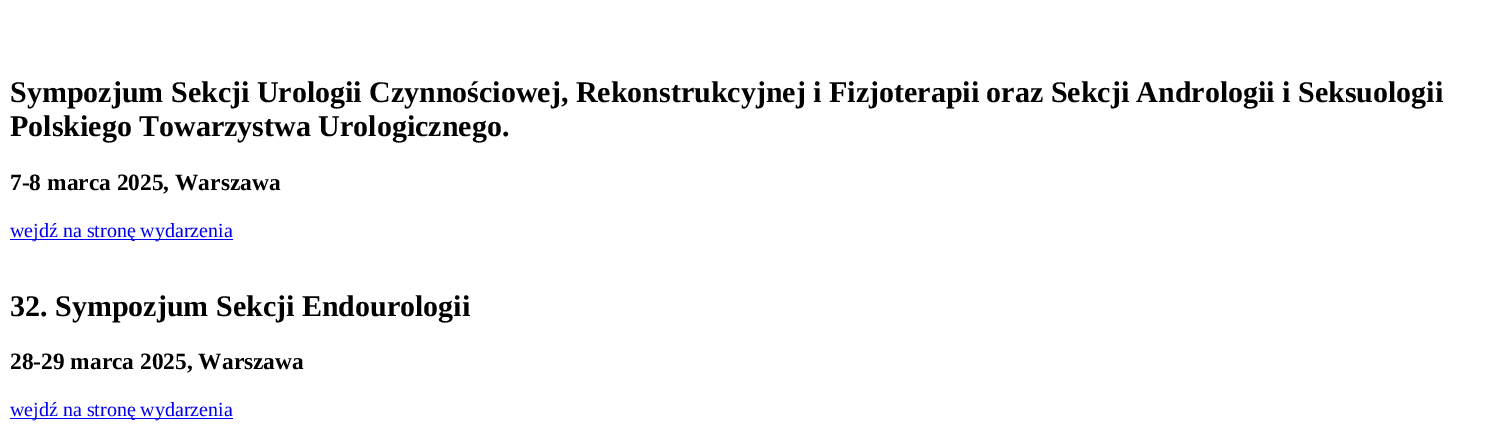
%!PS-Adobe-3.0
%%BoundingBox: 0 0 1507 429
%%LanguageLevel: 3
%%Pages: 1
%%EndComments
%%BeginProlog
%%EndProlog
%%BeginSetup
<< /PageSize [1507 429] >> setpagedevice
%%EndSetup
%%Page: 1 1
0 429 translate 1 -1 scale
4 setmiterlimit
1 setgray
0 0 1507 429 rectfill
0 0 0.933 setrgbcolor
10 239 223 1 rectfill
10 418 223 1 rectfill
/LiberationSerif-Bold [30 0 0 -30 0 0] selectfont
0 setgray
10 102 moveto (Sympozjum Sekcji Urologii Czynnościowej, Rekonstrukcyjnej i Fizjoterapii oraz Sekcji Andrologii i Seksuologii) show
10 136 moveto (Polskiego Towarzystwa Urologicznego.) show
/LiberationSerif-Bold [23.4 0 0 -23.4 0 0] selectfont
10 190 moveto (7-8 marca 2025, Warszawa) show
/LiberationSerif-Regular [20 0 0 -20 0 0] selectfont
0 0 0.933 setrgbcolor
10 237 moveto (wejdź na stronę wydarzenia) show
/LiberationSerif-Bold [30 0 0 -30 0 0] selectfont
0 setgray
10 316 moveto (32. Sympozjum Sekcji Endourologii) show
/LiberationSerif-Bold [23.4 0 0 -23.4 0 0] selectfont
10 369 moveto (28-29 marca 2025, Warszawa) show
/LiberationSerif-Regular [20 0 0 -20 0 0] selectfont
0 0 0.933 setrgbcolor
10 416 moveto (wejdź na stronę wydarzenia) show
showpage
%%EOF
